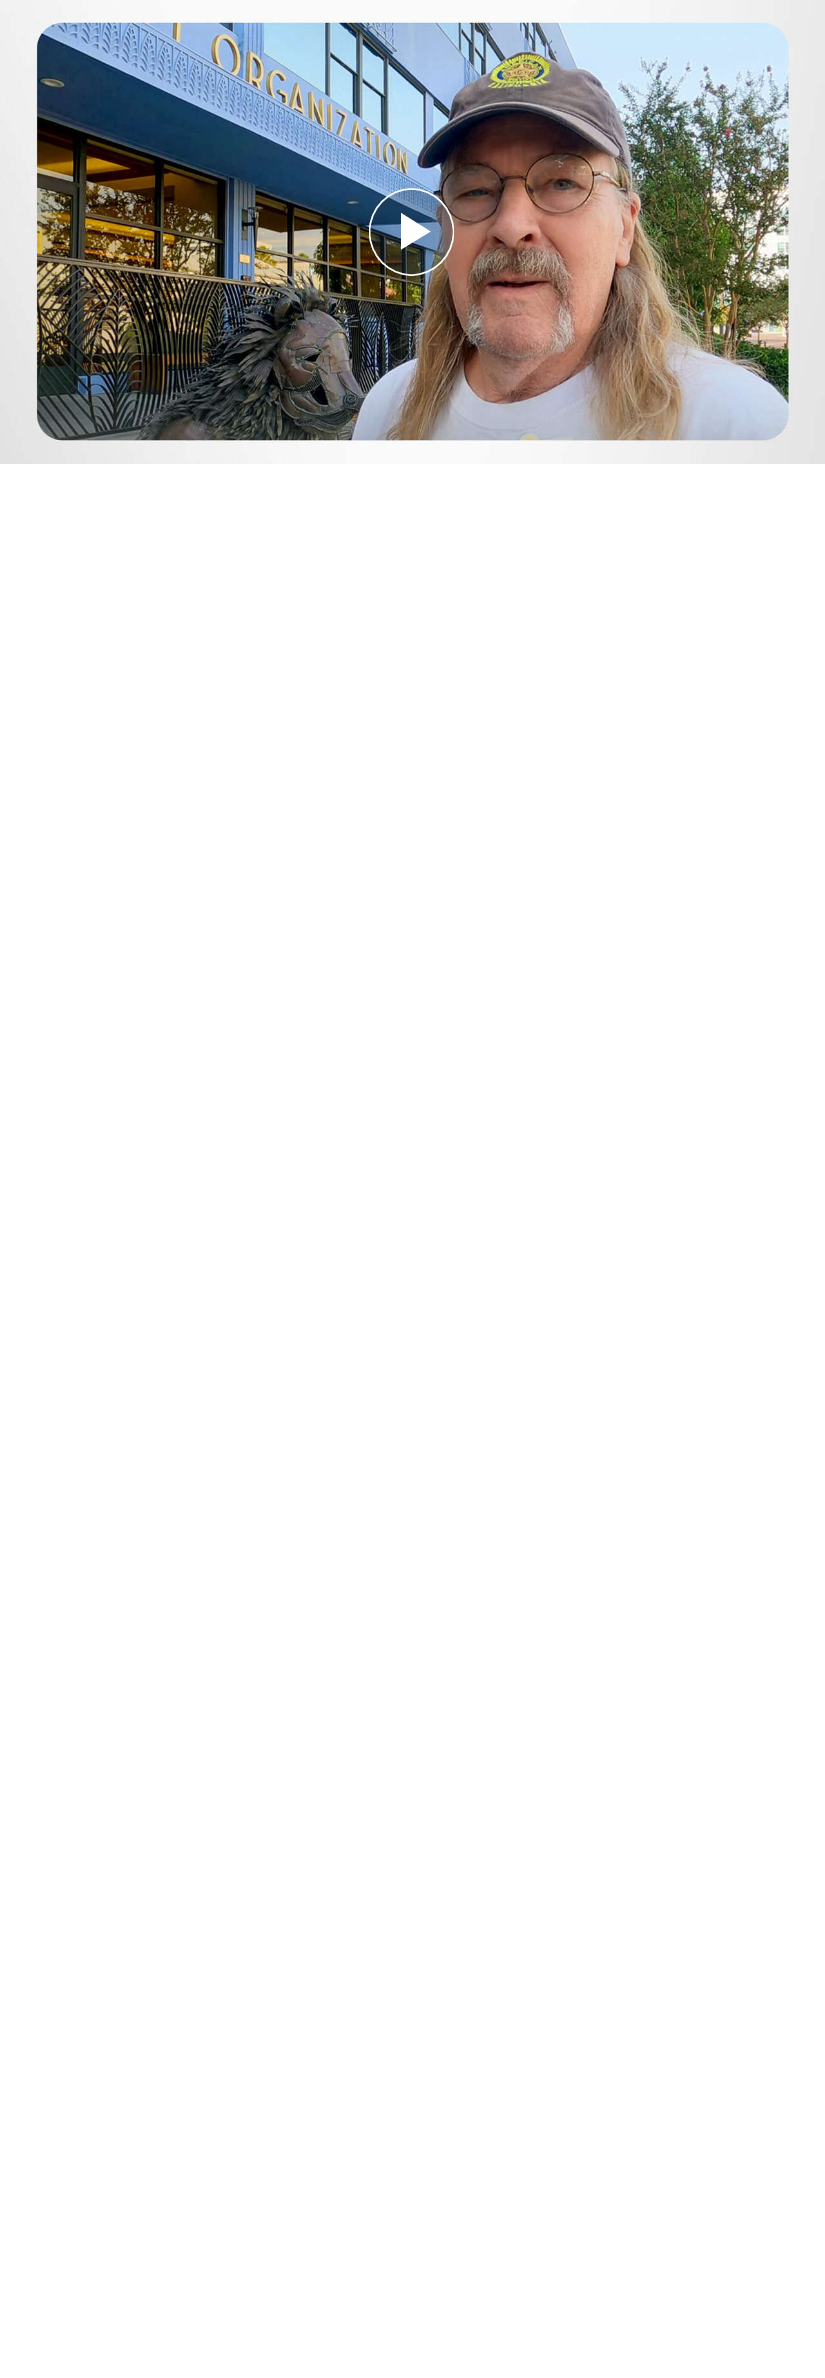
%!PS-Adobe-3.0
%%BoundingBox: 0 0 825 2378
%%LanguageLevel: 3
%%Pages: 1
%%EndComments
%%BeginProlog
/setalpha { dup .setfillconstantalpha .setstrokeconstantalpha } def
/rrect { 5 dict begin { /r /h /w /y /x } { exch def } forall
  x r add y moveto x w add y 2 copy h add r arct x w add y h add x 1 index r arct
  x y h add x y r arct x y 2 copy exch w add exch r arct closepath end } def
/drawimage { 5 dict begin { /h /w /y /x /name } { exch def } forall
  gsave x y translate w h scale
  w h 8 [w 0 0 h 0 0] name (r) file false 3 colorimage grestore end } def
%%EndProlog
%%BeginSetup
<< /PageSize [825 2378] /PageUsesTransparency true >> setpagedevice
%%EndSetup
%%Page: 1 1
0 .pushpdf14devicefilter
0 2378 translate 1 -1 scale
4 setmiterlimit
1 setgray
0 0 825 2378 rectfill
(images/1.raw) 0 0 825 464 drawimage
0.3 setalpha
0.094 0.196 0.298 setrgbcolor
newpath 411.5 189 moveto 434.5 189 453.5 208.5 453.5 232 curveto 453.5 255.5 434.5 275 411.5 275 curveto 388.5 275 369.5 255.5 369.5 232 curveto 369.5 208.5 388.5 189 411.5 189 curveto closepath fill
gsave
369 188 85 88 rectclip
369 188 88 88 44 rrect clip newpath
1 setalpha
1 setgray
1.4 setlinewidth
newpath 411.5 189 moveto 434.5 189 453.5 208.5 453.5 232 curveto 453.5 255.5 434.5 275 411.5 275 curveto 388.5 275 369.5 255.5 369.5 232 curveto 369.5 208.5 388.5 189 411.5 189 curveto closepath stroke
grestore
1 setalpha
1 setgray
newpath 430.5 231.5 moveto 401 213 lineto 401 249.5 lineto closepath fill
.poppdf14devicefilter showpage
%%EOF
